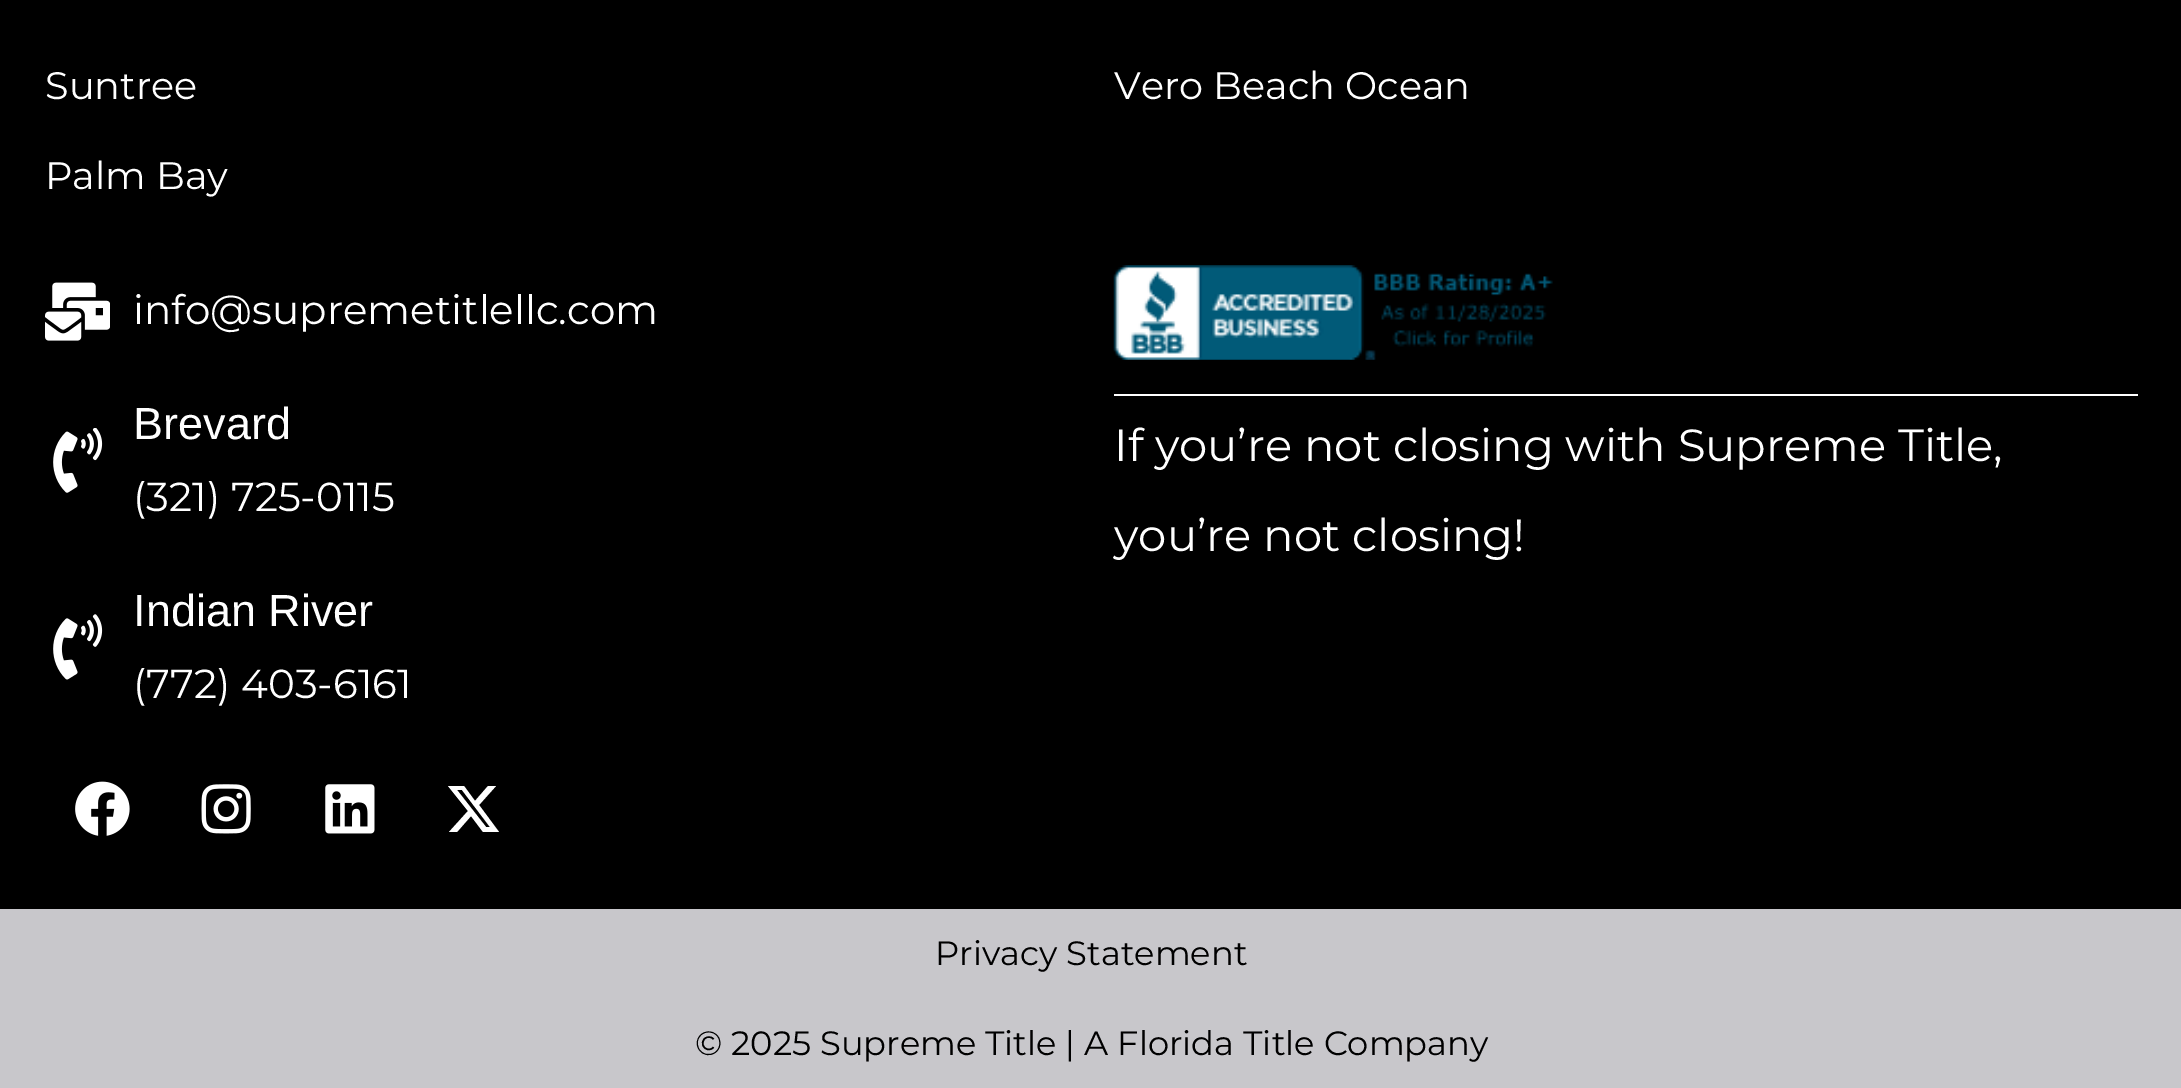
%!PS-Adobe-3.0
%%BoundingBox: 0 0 2181 1088
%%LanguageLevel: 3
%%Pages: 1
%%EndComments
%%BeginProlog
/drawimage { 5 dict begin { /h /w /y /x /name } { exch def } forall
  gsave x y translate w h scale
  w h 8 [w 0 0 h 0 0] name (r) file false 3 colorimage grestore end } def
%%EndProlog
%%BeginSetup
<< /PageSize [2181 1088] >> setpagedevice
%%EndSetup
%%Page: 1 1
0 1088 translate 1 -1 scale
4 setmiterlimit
0 setgray
0 0 2181 1088 rectfill
(images/1.raw) 45 282 65 59 drawimage
(images/2.raw) 53 428 50 65 drawimage
(images/3.raw) 53 614 50 66 drawimage
(images/4.raw) 75 781 55 55 drawimage
(images/5.raw) 201 784 50 50 drawimage
(images/6.raw) 325 784 50 50 drawimage
1 setgray
newpath 488 786 moveto 496 786 lineto 479 805 lineto 499 832 lineto 483 832 lineto 471 816 lineto 457 832 lineto 449 832 lineto 468 811 lineto 448 786 lineto 464 786 lineto 475 801 lineto closepath 486 827 moveto 490 827 lineto 462 790 lineto 457 790 lineto closepath fill
(images/7.raw) 1113 265 440 95 drawimage
1114 394 1024 2 rectfill
0.784 0.78 0.796 setrgbcolor
0 909 2181 179 rectfill
/Montserrat-Regular [38.25 0 0 -38.25 0 0] selectfont
1 setgray
45 99 moveto (Suntree) show
45 189 moveto (Palm Bay) show
1114 99 moveto (Vero Beach Ocean) show
/Montserrat-Regular [40.5 0 0 -40.5 0 0] selectfont
133 324 moveto (info@supremetitlellc.com) show
/LiberationSans-Regular [45 0 0 -45 0 0] selectfont
133 439 moveto (Brevard) show
/Montserrat-Regular [40.5 0 0 -40.5 0 0] selectfont
133 511 moveto (\(321\) 725-0115) show
/LiberationSans-Regular [45 0 0 -45 0 0] selectfont
133 626 moveto (Indian River) show
/Montserrat-Regular [40.5 0 0 -40.5 0 0] selectfont
133 698 moveto (\(772\) 403-6161) show
/Montserrat-Regular [45 0 0 -45 0 0] selectfont
1114 461 moveto (If you’re not closing with Supreme Title,) show
1114 551 moveto (you’re not closing!) show
/Montserrat-Regular [33.75 0 0 -33.75 0 0] selectfont
0 setgray
935 965 moveto (Privacy Statement) show
695 1055 moveto (© 2025 Supreme Title | A Florida Title Company) show
showpage
%%EOF
